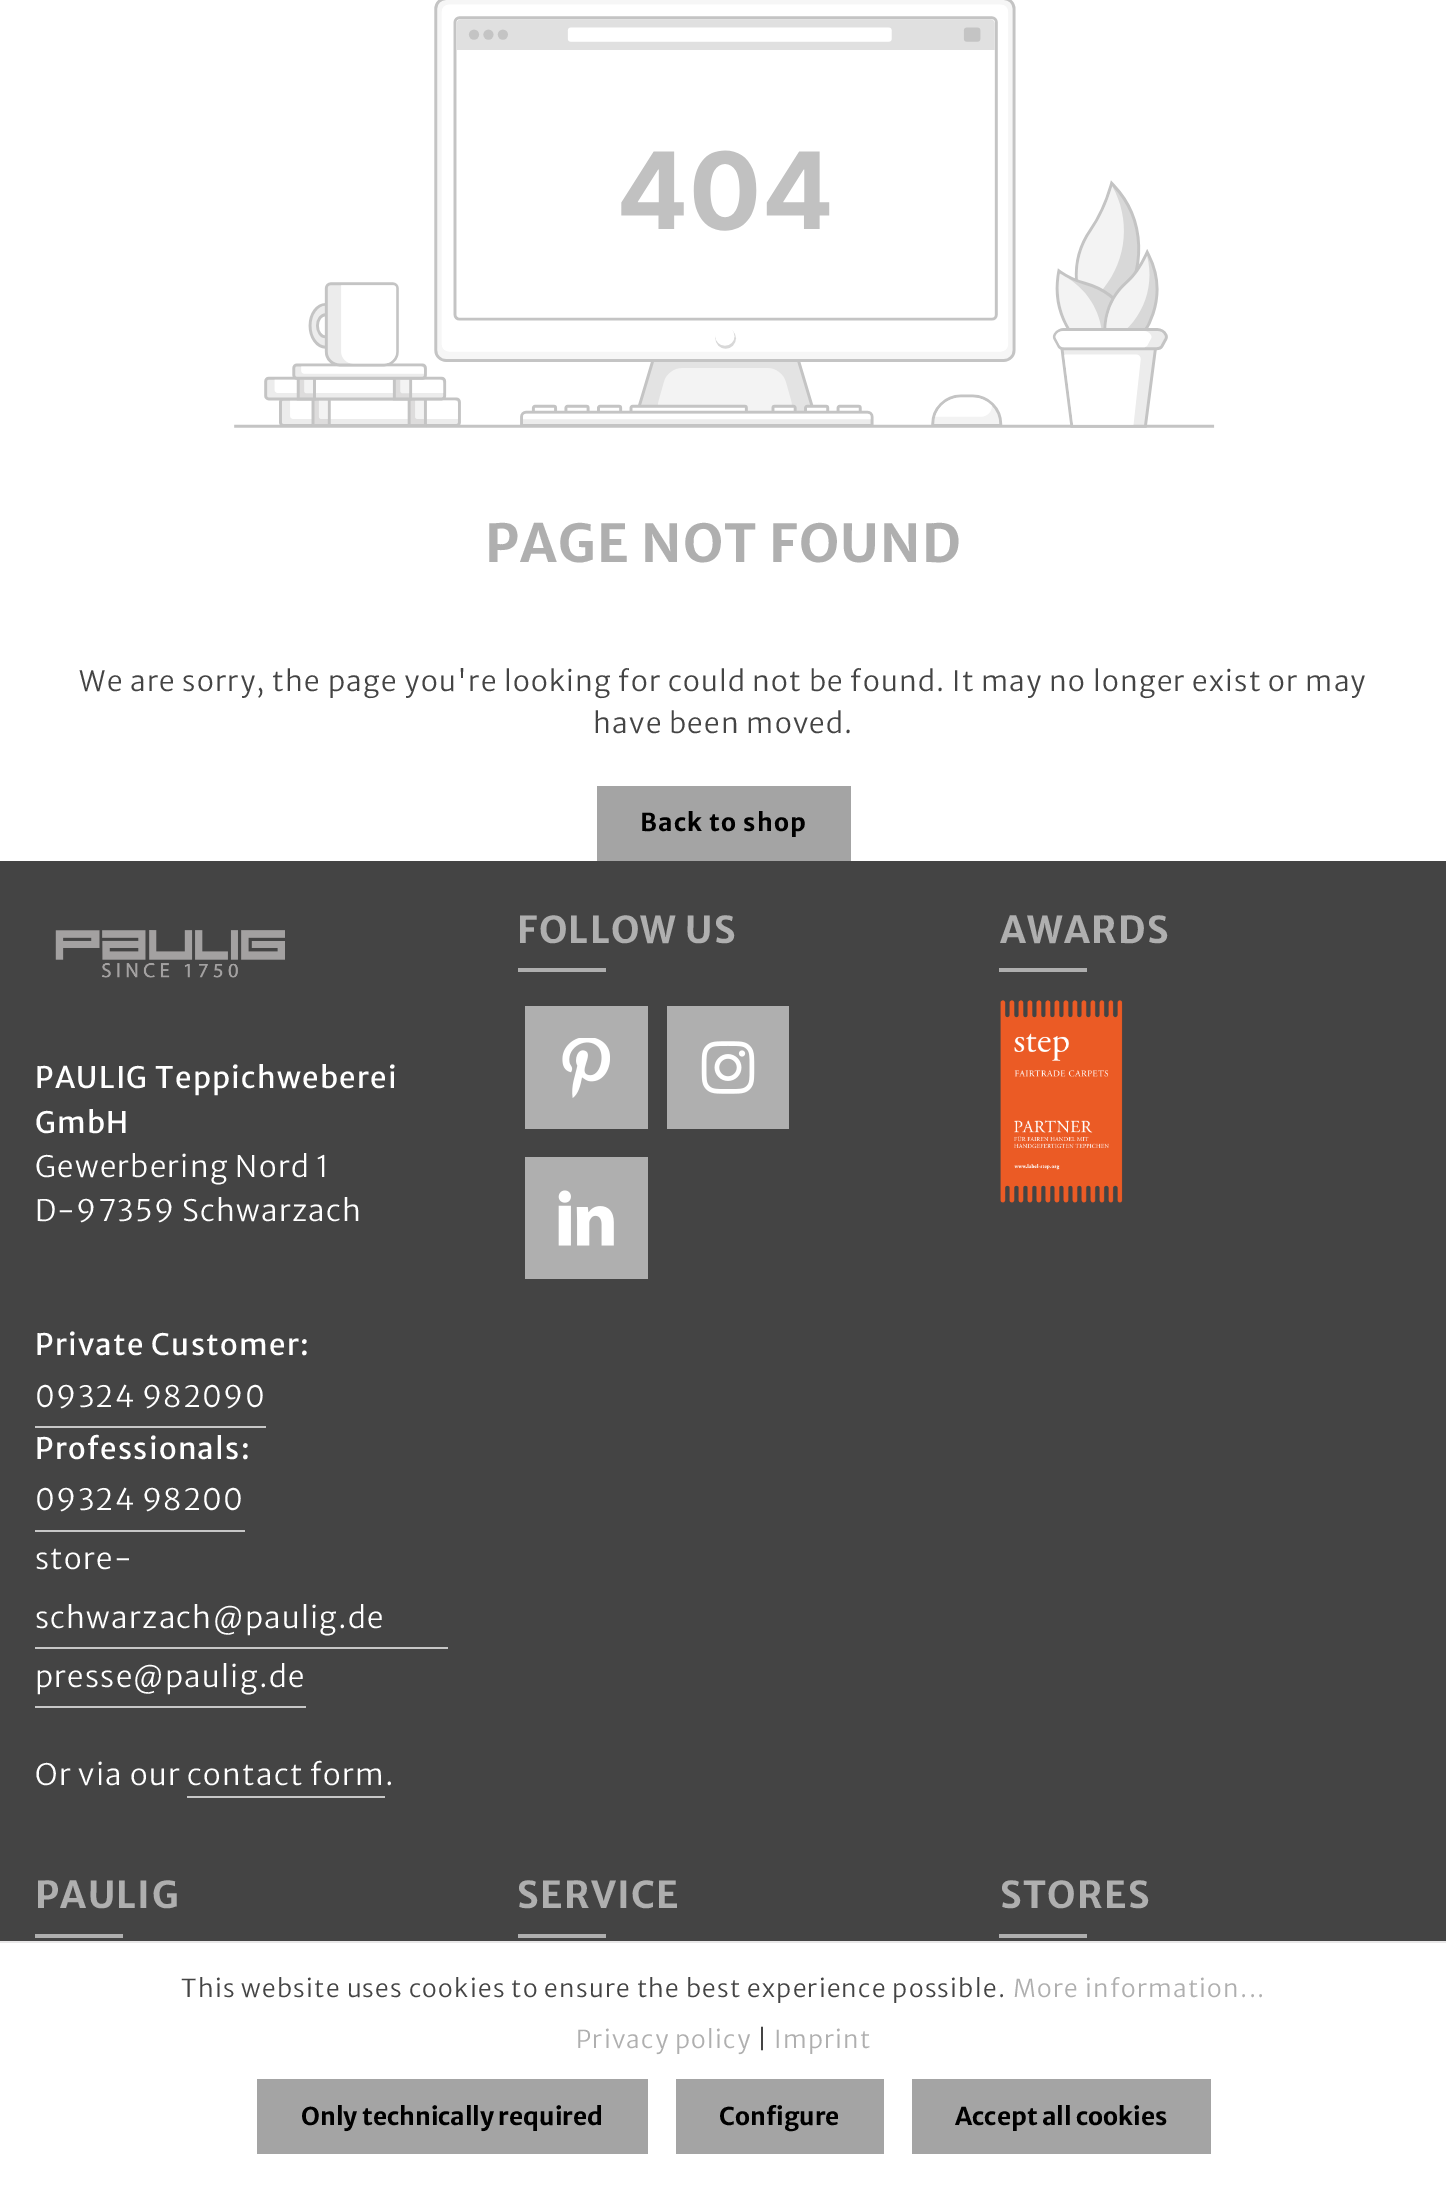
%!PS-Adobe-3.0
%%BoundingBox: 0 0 1446 2189
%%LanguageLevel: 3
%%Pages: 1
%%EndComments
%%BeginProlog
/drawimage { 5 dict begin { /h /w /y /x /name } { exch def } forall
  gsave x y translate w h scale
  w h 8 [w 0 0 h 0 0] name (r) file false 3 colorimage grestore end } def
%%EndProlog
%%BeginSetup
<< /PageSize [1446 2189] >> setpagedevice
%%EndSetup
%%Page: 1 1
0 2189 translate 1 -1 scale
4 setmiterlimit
1 setgray
0 0 1446 2189 rectfill
(images/1.raw) 234 0 981 428 drawimage
0.643 setgray
597 786 254 75 rectfill
0.267 setgray
0 861 1446 1080 rectfill
0.686 setgray
518 968 88 4 rectfill
525 1006 123 123 rectfill
(images/2.raw) 562 1038 48 60 drawimage
667 1006 122 123 rectfill
(images/3.raw) 701 1041 54 53 drawimage
525 1157 123 122 rectfill
(images/4.raw) 558 1190 56 56 drawimage
999 968 88 4 rectfill
(images/5.raw) 1000 1000 123 203 drawimage
(images/6.raw) 55 930 230 48 drawimage
0.78 setgray
35 1426 231 2 rectfill
35 1530 210 2 rectfill
35 1647 413 2 rectfill
35 1706 271 2 rectfill
187 1796 198 2 rectfill
0.686 setgray
35 1934 88 4 rectfill
518 1934 88 4 rectfill
999 1934 88 4 rectfill
0.91 0.906 0.91 setrgbcolor
0 1941 1446 2 rectfill
0.643 setgray
257 2079 391 75 rectfill
676 2079 208 75 rectfill
912 2079 299 75 rectfill
/MerriweatherSans-Bold [52.25 0 0 -52.25 0 0] selectfont
0.686 setgray
485 562 moveto 1.3 0 (PAGE NOT FOUND) ashow
/MerriweatherSans-Light [28 0 0 -28 0 0] selectfont
0.267 setgray
79 691 moveto 1.3 0 (We are sorry, the page you're looking for could not be found. It may no longer exist or may) ashow
593 733 moveto 1.3 0 (have been moved.) ashow
/MerriweatherSans-Bold [24.5 0 0 -24.5 0 0] selectfont
0 setgray
640 831 moveto 1.3 0 (Back to shop) ashow
/MerriweatherSans-Bold [37 0 0 -37 0 0] selectfont
0.686 setgray
517 943 moveto 1.3 0 (FOLLOW US) ashow
1000 943 moveto 1.3 0 (AWARDS) ashow
/MerriweatherSans-Regular [29.5 0 0 -29.5 0 0] selectfont
1 setgray
35 1088 moveto 1.3 0 (PAULIG Teppichweberei) ashow
35 1133 moveto 1.3 0 (GmbH) ashow
/MerriweatherSans-Light [29.5 0 0 -29.5 0 0] selectfont
35 1177 moveto 1.3 0 (Gewerbering Nord 1) ashow
35 1221 moveto 1.3 0 (D-97359 Schwarzach) ashow
/MerriweatherSans-Regular [29.5 0 0 -29.5 0 0] selectfont
35 1355 moveto 1.3 0 (Private Customer:) ashow
/MerriweatherSans-Light [29.5 0 0 -29.5 0 0] selectfont
35 1407 moveto 1.3 0 (09324 982090) ashow
/MerriweatherSans-Regular [29.5 0 0 -29.5 0 0] selectfont
35 1459 moveto 1.3 0 (Professionals:) ashow
/MerriweatherSans-Light [29.5 0 0 -29.5 0 0] selectfont
35 1510 moveto 1.3 0 (09324 98200) ashow
35 1569 moveto 1.3 0 (store-) ashow
35 1628 moveto 1.3 0 (schwarzach@paulig.de) ashow
35 1687 moveto 1.3 0 (presse@paulig.de) ashow
35 1785 moveto 1.3 0 (Or via our contact form) ashow
385 1785 moveto 1.3 0 (.) ashow
/MerriweatherSans-Bold [37 0 0 -37 0 0] selectfont
0.686 setgray
35 1908 moveto 1.3 0 (PAULIG) ashow
517 1908 moveto 1.3 0 (SERVICE) ashow
1000 1908 moveto 1.3 0 (STORES) ashow
/MerriweatherSans-Light [24.5 0 0 -24.5 0 0] selectfont
0.267 setgray
181 1997 moveto 1.3 0 (This website uses cookies to ensure the best experience possible.) ashow
0.686 setgray
1013 1997 moveto 1.3 0 (More information...) ashow
576 2048 moveto 1.3 0 (Privacy policy) ashow
0.267 setgray
757 2048 moveto 1.3 0 (|) ashow
0.686 setgray
774 2048 moveto 1.3 0 (Imprint) ashow
/MerriweatherSans-Bold [24.5 0 0 -24.5 0 0] selectfont
0 setgray
301 2125 moveto (Only technically required) show
719 2125 moveto (Configure) show
955 2125 moveto (Accept all cookies) show
showpage
%%EOF
